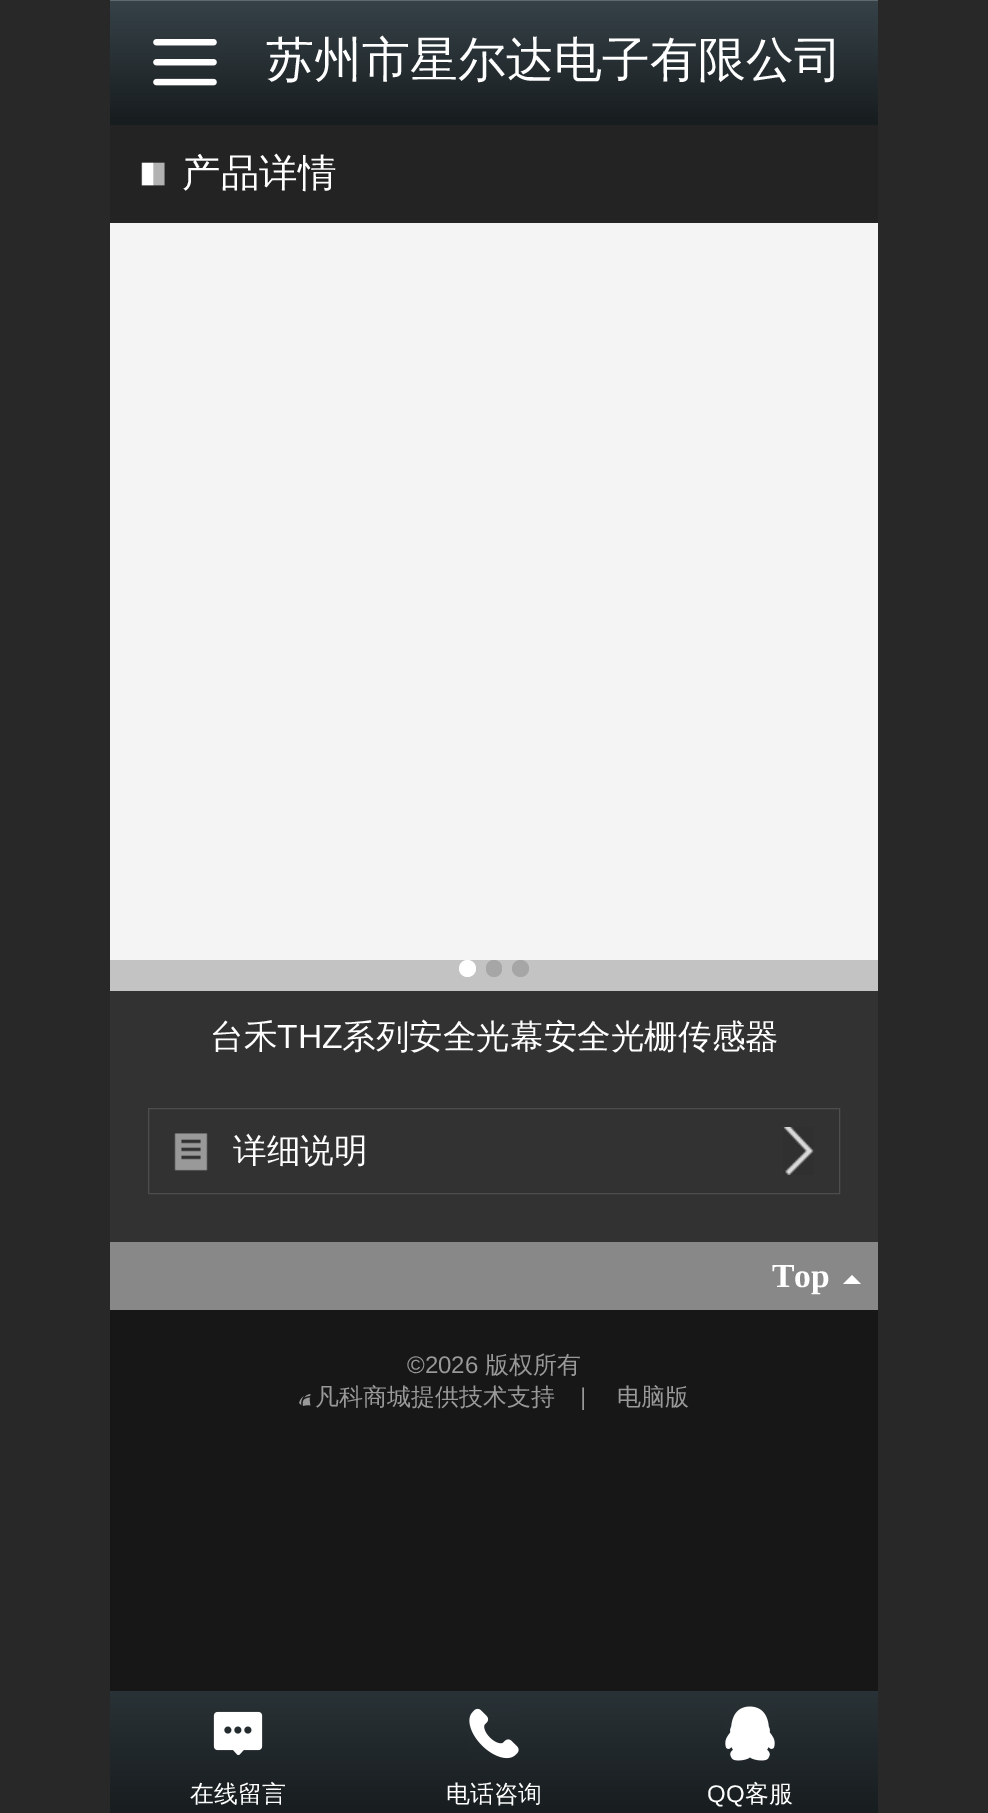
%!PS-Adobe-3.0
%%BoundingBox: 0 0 988 1813
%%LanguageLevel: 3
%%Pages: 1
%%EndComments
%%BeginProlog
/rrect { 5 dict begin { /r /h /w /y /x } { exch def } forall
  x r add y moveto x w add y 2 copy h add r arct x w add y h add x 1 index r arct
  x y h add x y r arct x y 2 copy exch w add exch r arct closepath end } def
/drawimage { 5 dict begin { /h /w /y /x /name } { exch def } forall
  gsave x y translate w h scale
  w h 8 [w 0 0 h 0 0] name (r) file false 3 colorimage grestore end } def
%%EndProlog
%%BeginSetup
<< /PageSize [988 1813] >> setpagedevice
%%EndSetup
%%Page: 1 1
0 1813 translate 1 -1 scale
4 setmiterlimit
0.09 setgray
0 0 988 1813 rectfill
0.157 setgray
0 0 110 1813 rectfill
gsave newpath 110 1 moveto 878 1 lineto 878 125 lineto 110 125 lineto closepath clip newpath
<< /ShadingType 2 /ColorSpace /DeviceRGB /Coords [110 125 110 0] /Extend [true true] /Function << /FunctionType 2 /Domain [0 1] /C0 [0.09 0.11 0.118] /C1 [0.212 0.259 0.282] /N 1 >> >> shfill grestore
(images/1.raw) 153 39 64 47 drawimage
0.369 0.408 0.427 setrgbcolor
110 0 768 1 rectfill
0.196 setgray
110 991 768 251 rectfill
0.141 setgray
110 221 768 2 rectfill
0.137 setgray
110 125 768 96 rectfill
(images/2.raw) 141 162 24 24 drawimage
0.957 setgray
110 223 768 737 rectfill
0.765 setgray
110 960 768 31 rectfill
1 setgray
newpath 467.5 968.5 8.5 0 360 arc closepath fill
0.651 setgray
486 960 16 17 8 rrect fill
newpath 520.5 968.5 8.5 0 360 arc closepath fill
0.302 setgray
148.5 1108.5 691 85 rectstroke
(images/3.raw) 174 1133 34 38 drawimage
(images/4.raw) 783 1127 31 48 drawimage
0.533 setgray
110 1242 768 68 rectfill
1 setgray
newpath 861 1284 moveto 843 1284 lineto 852 1275 lineto closepath fill
(images/5.raw) 299 1394 12 12 drawimage
gsave newpath 110 1691 moveto 878 1691 lineto 878 1813 lineto 110 1813 lineto closepath clip newpath
<< /ShadingType 2 /ColorSpace /DeviceRGB /Coords [110 1813 110 1691] /Extend [true true] /Function << /FunctionType 2 /Domain [0 1] /C0 [0.094 0.114 0.122] /C1 [0.161 0.196 0.212] /N 1 >> >> shfill grestore
(images/6.raw) 213 1711 50 45 drawimage
(images/7.raw) 469 1708 50 51 drawimage
(images/8.raw) 725 1706 50 55 drawimage
0.157 setgray
878 0 110 1813 rectfill
/WenQuanYiZenHei-Medium [48 0 0 -48 0 0] selectfont
1 setgray
266 76 moveto (苏州市星尔达电子有限公司) show
/WenQuanYiZenHei-Medium [38.5 0 0 -38.5 0 0] selectfont
182 186 moveto (产品详情) show
/WenQuanYiZenHei-Medium [33.6 0 0 -33.6 0 0] selectfont
210 1048 moveto (台禾) show
/LiberationSans-Regular [33.6 0 0 -33.6 0 0] selectfont
277 1048 moveto (THZ) show
/WenQuanYiZenHei-Medium [33.6 0 0 -33.6 0 0] selectfont
342 1048 moveto (系列安全光幕安全光栅传感器) show
233 1162 moveto (详细说明) show
/LiberationSerif-Bold [33.6 0 0 -33.6 0 0] selectfont
772 1287 moveto (Top) show
/LiberationSans-Regular [24 0 0 -24 0 0] selectfont
0.6 setgray
407 1373 moveto (©2026) show
/WenQuanYiZenHei-Medium [24 0 0 -24 0 0] selectfont
485 1373 moveto (版权所有) show
315 1405 moveto (凡科商城提供技术支持) show
/LiberationSans-Regular [24 0 0 -24 0 0] selectfont
580 1405 moveto (|) show
/WenQuanYiZenHei-Medium [24 0 0 -24 0 0] selectfont
617 1405 moveto (电脑版) show
1 setgray
190 1802 moveto (在线留言) show
446 1802 moveto (电话咨询) show
/LiberationSans-Regular [24 0 0 -24 0 0] selectfont
707 1802 moveto (QQ) show
/WenQuanYiZenHei-Medium [24 0 0 -24 0 0] selectfont
745 1802 moveto (客服) show
showpage
%%EOF
